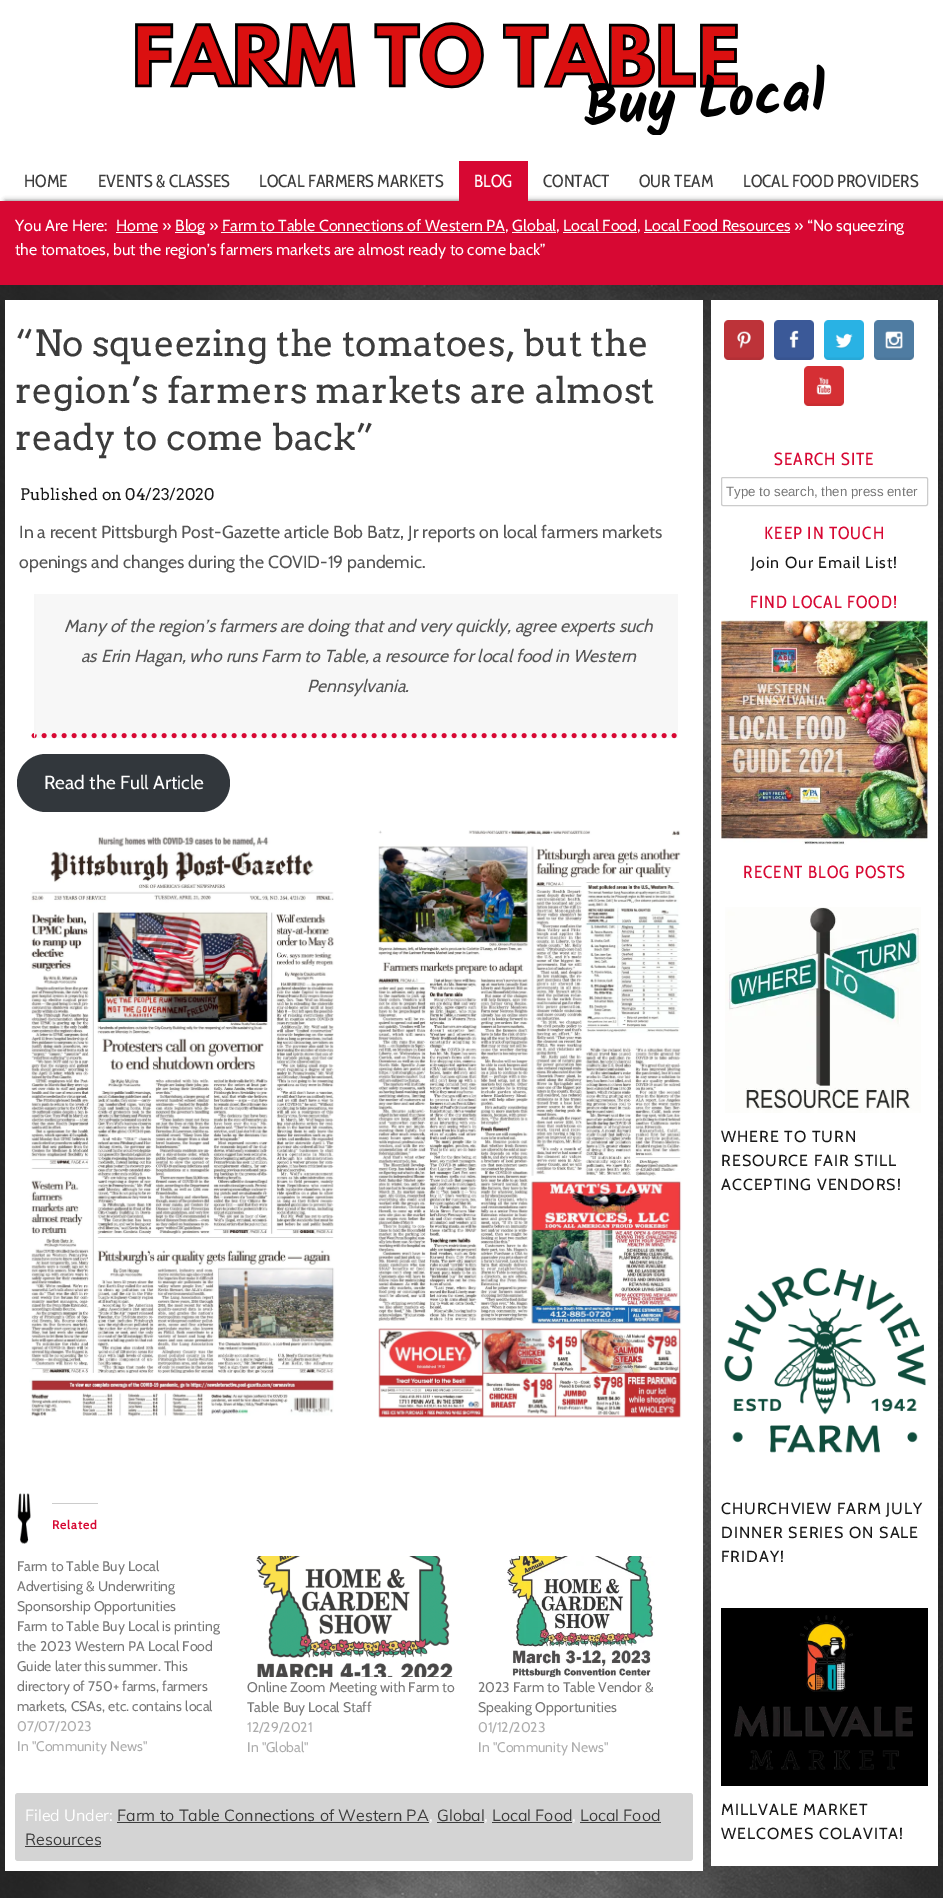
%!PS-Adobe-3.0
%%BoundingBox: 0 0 943 1898
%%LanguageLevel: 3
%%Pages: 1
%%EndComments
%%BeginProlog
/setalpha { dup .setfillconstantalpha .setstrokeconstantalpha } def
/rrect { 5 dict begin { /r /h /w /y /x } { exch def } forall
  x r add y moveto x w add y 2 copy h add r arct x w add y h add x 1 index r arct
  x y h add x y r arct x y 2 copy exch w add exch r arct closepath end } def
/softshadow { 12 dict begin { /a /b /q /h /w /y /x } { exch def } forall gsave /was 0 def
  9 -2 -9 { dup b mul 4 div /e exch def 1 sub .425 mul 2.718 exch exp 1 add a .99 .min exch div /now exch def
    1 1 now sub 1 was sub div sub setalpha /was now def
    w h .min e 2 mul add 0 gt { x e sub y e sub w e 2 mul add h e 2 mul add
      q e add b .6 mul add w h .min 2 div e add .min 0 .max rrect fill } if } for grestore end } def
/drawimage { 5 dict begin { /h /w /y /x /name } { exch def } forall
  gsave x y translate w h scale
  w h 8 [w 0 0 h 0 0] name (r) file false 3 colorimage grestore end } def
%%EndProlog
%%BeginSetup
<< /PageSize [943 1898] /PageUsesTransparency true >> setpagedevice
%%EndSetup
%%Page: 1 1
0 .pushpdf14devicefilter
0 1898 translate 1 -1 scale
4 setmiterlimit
1 setgray
0 0 943 1898 rectfill
(images/1.raw) 135 22 690 113 drawimage
0.424 0.412 0.412 setrgbcolor
5 201 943 84 0 2.5 1 softshadow
0.843 0.031 0.2 setrgbcolor
459 161 69 40 rectfill
0 201 943 84 rectfill
0.992 setgray
116 232 42 1 rectfill
175 232 30 1 rectfill
(images/2.raw) 0 285 943 1613 drawimage
1 setgray
5 300 698 1571 rectfill
0.969 setgray
34 594 644 144 rectfill
0.843 0.031 0.2 setrgbcolor
5 setlinewidth
1 setlinecap
[0 10] 0 setdash
newpath 34 735.5 moveto 678 735.5 lineto stroke
0.965 setgray
newpath 34 738 moveto 34 594 lineto 36 594 lineto 36 733 lineto closepath fill
0.196 0.216 0.235 setrgbcolor
17 754 213 58 29 rrect fill
(images/3.raw) 29 836 307 581 drawimage
(images/4.raw) 378 830 304 588 drawimage
(images/5.raw) 17 1493 14 51 drawimage
0.8 setgray
52 1503 46 1 rectfill
(images/6.raw) 256 1556 197 121 drawimage
(images/7.raw) 507 1556 148 121 drawimage
0.831 setgray
15 1793 678 68 3 rrect fill
0.235 setgray
117 1822 312 1 rectfill
437 1822 47 1 rectfill
492 1822 80 1 rectfill
580 1822 81 1 rectfill
25 1846 76 1 rectfill
1 setgray
711 300 227 1566 rectfill
(images/8.raw) 724 320 40 40 drawimage
(images/9.raw) 774 320 40 40 drawimage
(images/10.raw) 824 320 40 40 drawimage
(images/11.raw) 874 320 40 40 drawimage
(images/12.raw) 804 366 40 40 drawimage
0.8 setgray
1 setlinewidth
0 setlinecap
[] 0 setdash
721.5 477.5 206 28 1.5 rrect stroke
(images/13.raw) 721 620 207 225 drawimage
(images/14.raw) 725 907 196 206 drawimage
(images/15.raw) 724 1267 202 186 drawimage
(images/16.raw) 721 1608 207 178 drawimage
/CabinCondensed-Regular [17.6 0 0 -17.6 0 0] selectfont
0.235 setgray
24 187 moveto (HOME) show
98 187 moveto (EVENTS & CLASSES) show
259 187 moveto (LOCAL FARMERS MARKETS) show
1 setgray
474 187 moveto (BLOG) show
0.235 setgray
543 187 moveto (CONTACT) show
639 187 moveto (OUR TEAM) show
743 187 moveto (LOCAL FOOD PROVIDERS) show
/Cabin-Regular [16 0 0 -16 0 0] selectfont
1 setgray
15 231 moveto (You Are Here:) show
116 231 moveto (Home ») show
175 231 moveto (Blog » Farm to Table Connections of Western PA, Global, Local Food, Local Food Resources » “No squeezing) show
0.992 setgray
221 232 284 1 rectfill
512 232 44 1 rectfill
563 232 74 1 rectfill
644 232 146 1 rectfill
1 setgray
15 255 moveto (the tomatoes, but the region’s farmers markets are almost ready to come back”) show
/Arvo-Regular [36 0 0 -36 0 0] selectfont
0.235 setgray
15 356 moveto (“No squeezing the tomatoes, but the) show
15 403 moveto (region’s farmers markets are almost) show
15 450 moveto (ready to come back”) show
/Arvo-Regular [16 0 0 -16 0 0] selectfont
0.098 setgray
20 500 moveto (Published on 04/23/2020) show
/Cabin-Regular [17.65 0 0 -17.65 0 0] selectfont
0.333 setgray
19 538 moveto (In a recent Pittsburgh Post-Gazette article Bob Batz, Jr reports on local farmers markets) show
19 568 moveto (openings and changes during the COVID-19 pandemic.) show
/Cabin-Italic [17.65 0 0 -17.65 0 0] selectfont
64 632 moveto (Many of the region’s farmers are doing that and very quickly, agree experts such) show
81 662 moveto (as Erin Hagan, who runs Farm to Table, a resource for local food in Western) show
307 692 moveto (Pennsylvania.) show
/Cabin-Regular [19 0 0 -19 0 0] selectfont
1 setgray
44 789 moveto (Read the Full Article) show
/Cabin-Bold [12 0 0 -12 0 0] selectfont
0.843 0.031 0.2 setrgbcolor
52 1529 moveto 1 0 (Related) ashow
/Cabin-Regular [14 0 0 -14 0 0] selectfont
0.467 setgray
17 1571 moveto (Farm to Table Buy Local) show
17 1591 moveto (Advertising & Underwriting) show
17 1611 moveto (Sponsorship Opportunities) show
17 1631 moveto (Farm to Table Buy Local is printing) show
17 1651 moveto (the 2023 Western PA Local Food) show
17 1671 moveto (Guide later this summer. This) show
17 1691 moveto (directory of 750+ farms, farmers) show
17 1711 moveto (markets, CSAs, etc. contains local) show
0.678 setgray
17 1731 moveto (07/07/2023) show
17 1751 moveto (In "Community News") show
0.467 setgray
247 1692 moveto (Online Zoom Meeting with Farm to) show
247 1712 moveto (Table Buy Local Staff) show
0.678 setgray
247 1732 moveto (12/29/2021) show
247 1752 moveto (In "Global") show
0.467 setgray
478 1692 moveto (2023 Farm to Table Vendor &) show
478 1712 moveto (Speaking Opportunities) show
0.678 setgray
478 1732 moveto (01/12/2023) show
478 1752 moveto (In "Community News") show
/Muli-Regular [16 0 0 -16 0 0] selectfont
1 setgray
25 1821 moveto (Filed Under:) show
0.235 setgray
117 1821 moveto (Farm to Table Connections of Western PA) show
1 setgray
429 1821 moveto (,) show
0.235 setgray
437 1821 moveto (Global) show
1 setgray
484 1821 moveto (,) show
0.235 setgray
492 1821 moveto (Local Food) show
1 setgray
572 1821 moveto (,) show
0.235 setgray
580 1821 moveto (Local Food) show
25 1845 moveto (Resources) show
/CabinCondensed-Regular [17.6 0 0 -17.6 0 0] selectfont
0.843 0.031 0.2 setrgbcolor
774 465 moveto 1 0 (SEARCH SITE) ashow
/LiberationSans-Regular [13.3 0 0 -13.3 0 0] selectfont
0.467 setgray
726 496 moveto (Type to search, then press enter) show
/CabinCondensed-Regular [17.6 0 0 -17.6 0 0] selectfont
0.843 0.031 0.2 setrgbcolor
764 539 moveto 1 0 (KEEP IN TOUCH) ashow
/Cabin-Regular [16 0 0 -16 0 0] selectfont
0.098 setgray
751 568 moveto 1 0 (Join Our Email List!) ashow
/CabinCondensed-Regular [17.6 0 0 -17.6 0 0] selectfont
0.843 0.031 0.2 setrgbcolor
750 608 moveto 1 0 (FIND LOCAL FOOD!) ashow
743 878 moveto 1 0 (RECENT BLOG POSTS) ashow
/Cabin-Regular [16 0 0 -16 0 0] selectfont
0.098 setgray
721 1142 moveto 1 0 (WHERE TO TURN) ashow
721 1166 moveto 1 0 (RESOURCE FAIR STILL) ashow
721 1190 moveto 1 0 (ACCEPTING VENDORS!) ashow
721 1514 moveto 1 0 (CHURCHVIEW FARM JULY) ashow
721 1538 moveto 1 0 (DINNER SERIES ON SALE) ashow
721 1562 moveto 1 0 (FRIDAY!) ashow
721 1815 moveto 1 0 (MILLVALE MARKET) ashow
721 1839 moveto 1 0 (WELCOMES COLAVITA!) ashow
.poppdf14devicefilter showpage
%%EOF
